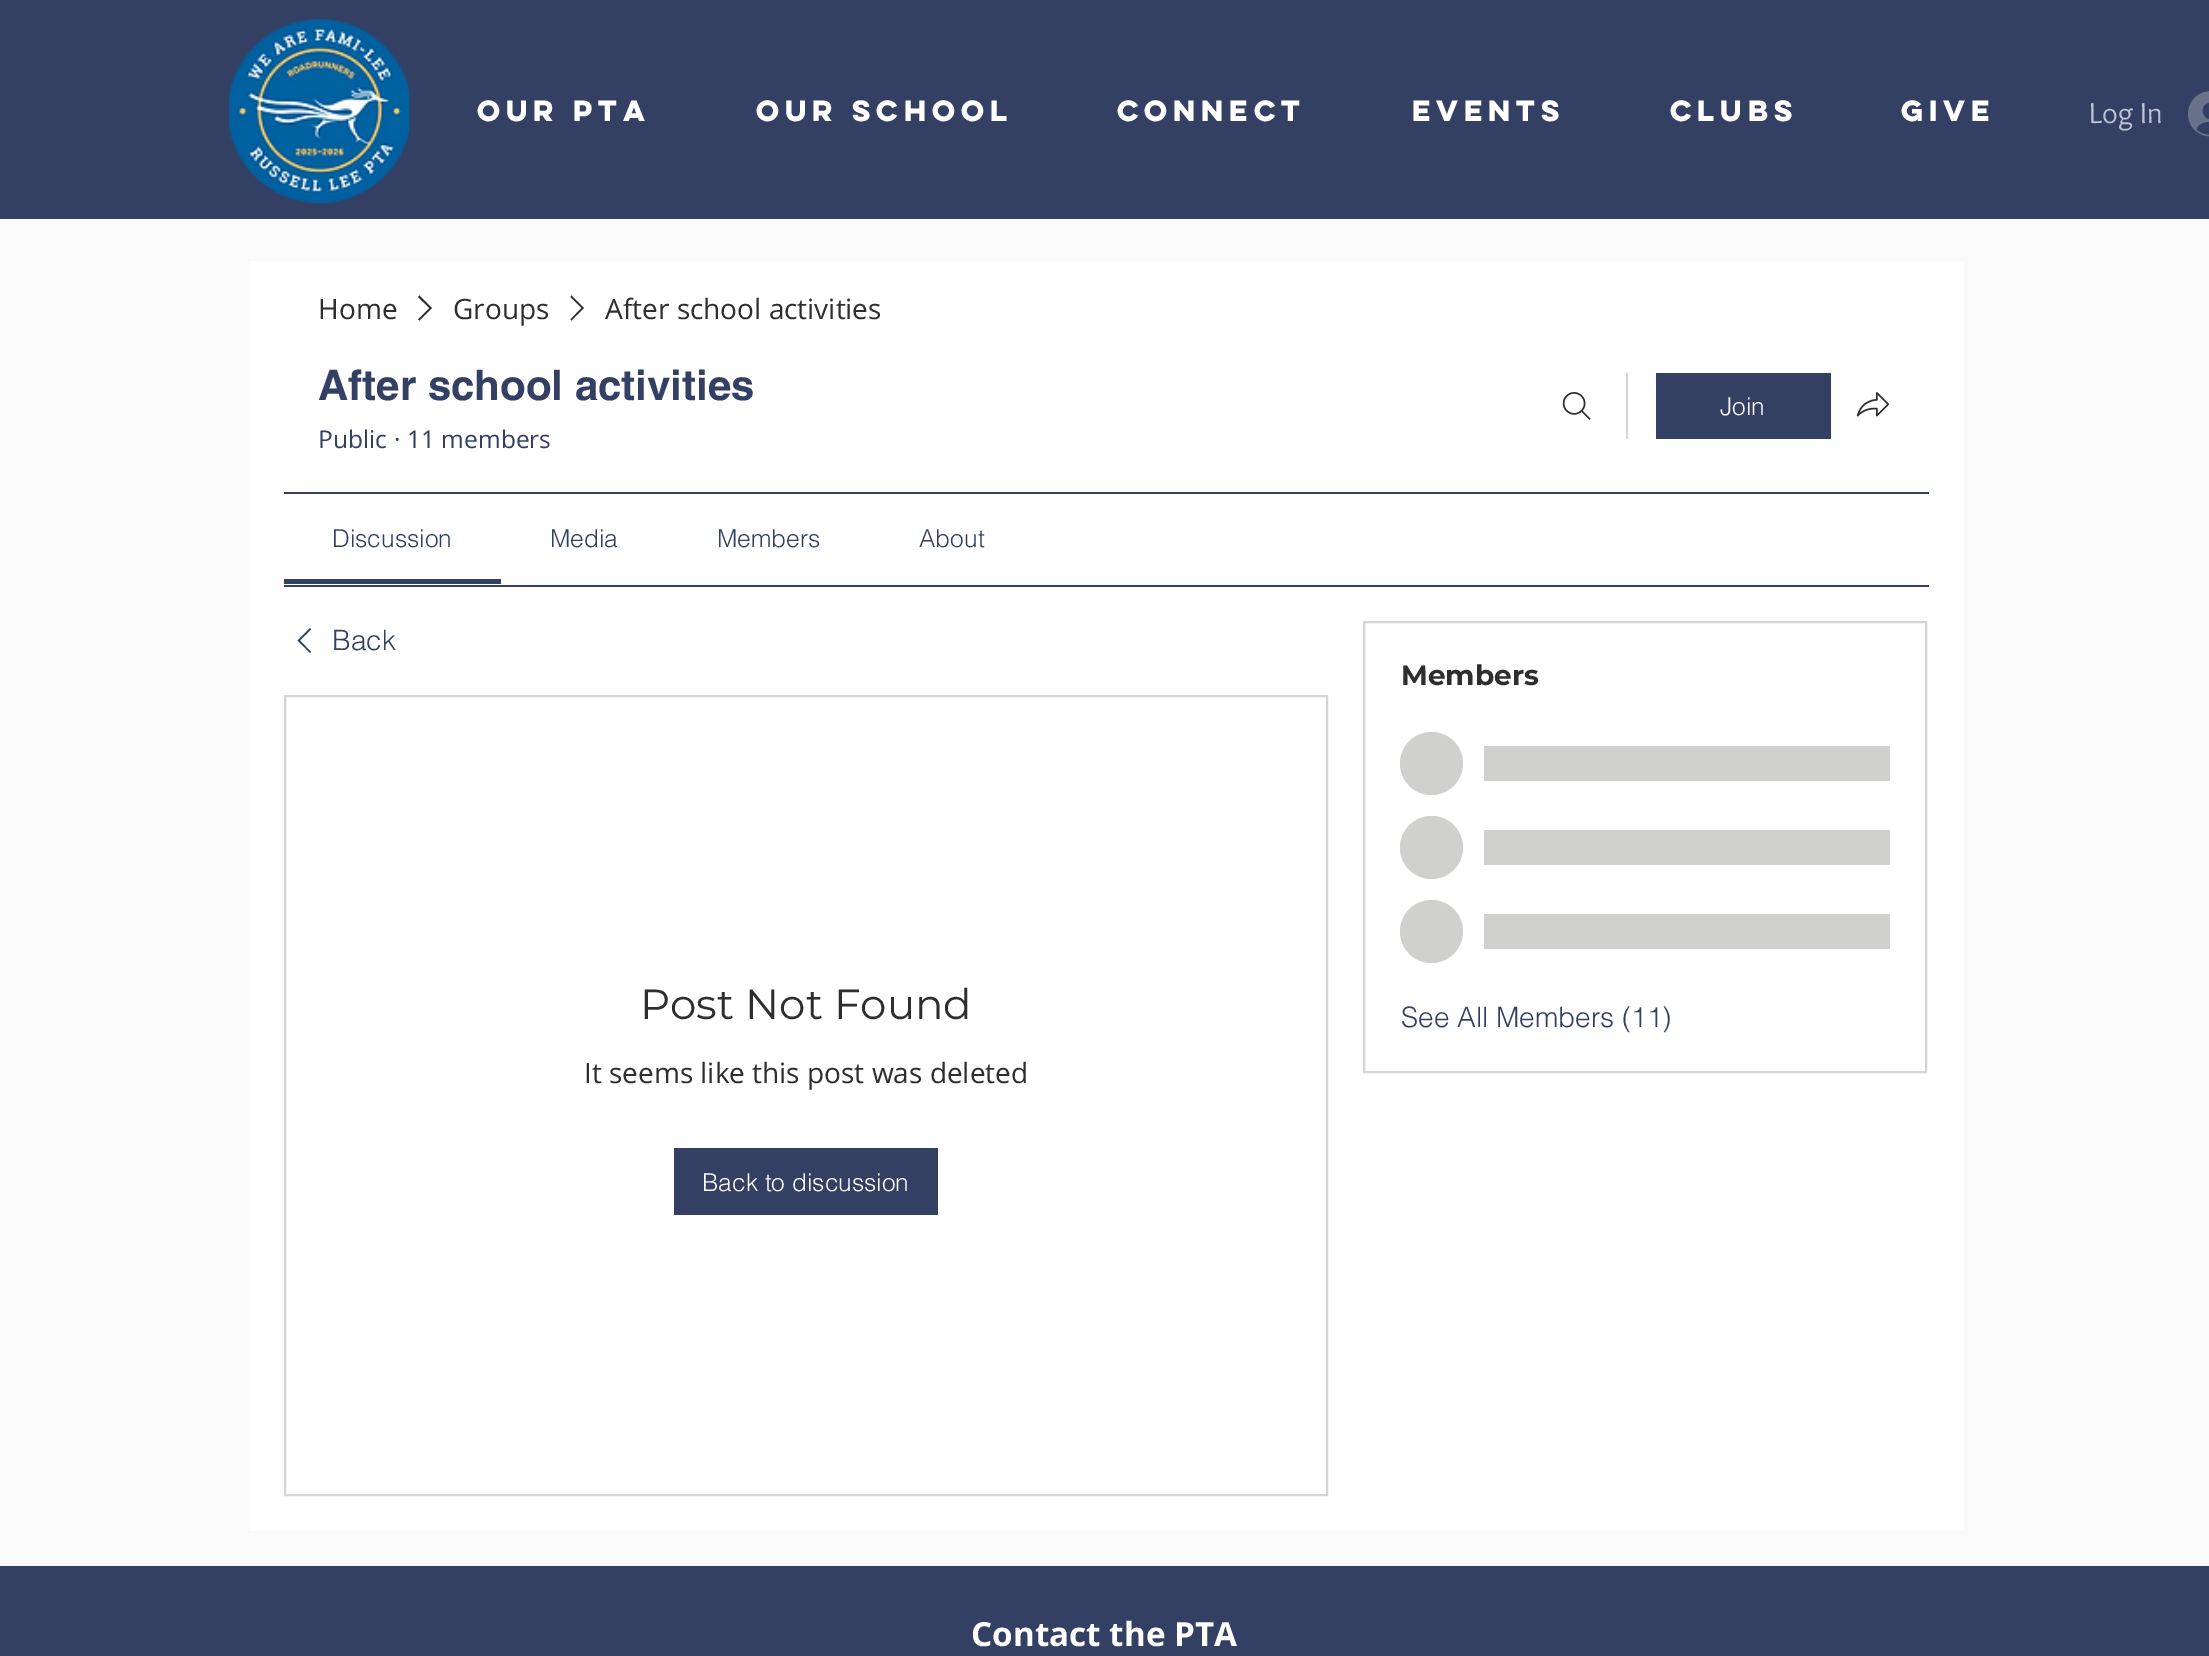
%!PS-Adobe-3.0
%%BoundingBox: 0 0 2209 1656
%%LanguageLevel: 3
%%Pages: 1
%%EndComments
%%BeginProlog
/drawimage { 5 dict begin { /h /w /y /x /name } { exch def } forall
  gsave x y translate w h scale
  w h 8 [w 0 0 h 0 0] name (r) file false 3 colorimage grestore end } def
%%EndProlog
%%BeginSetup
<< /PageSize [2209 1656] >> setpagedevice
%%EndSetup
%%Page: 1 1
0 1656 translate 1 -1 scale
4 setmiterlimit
0.98 setgray
0 0 2209 1656 rectfill
0.204 0.247 0.392 setrgbcolor
0 0 2209 219 rectfill
(images/1.raw) 229 19 181 184 drawimage
(images/2.raw) 2188 91 21 46 drawimage
1 setgray
249 261 1715 1270 rectfill
0.184 0.18 0.18 setrgbcolor
newpath 419.5 295.5 moveto 432 308 lineto 419.5 320.5 lineto 418 319.5 lineto 429.5 308 lineto 418 297 lineto closepath eofill
newpath 571.5 295.5 moveto 584 308 lineto 571.5 320.5 lineto 570.5 319.5 lineto 581.5 308 lineto 570.5 297 lineto closepath eofill
(images/3.raw) 1562 392 29 28 drawimage
0.835 setgray
1626 373 2 66 rectfill
0.204 0.247 0.392 setrgbcolor
1656 373 175 66 rectfill
(images/4.raw) 1856 392 34 25 drawimage
284 492 1645 2 rectfill
284 585 1645 2 rectfill
284 579 217 5 rectfill
newpath 310 628 moveto 311 629.5 lineto 300 640.5 lineto 311 652 lineto 310 653 lineto 297.5 640.5 lineto closepath eofill
0.835 setgray
2 setlinewidth
285 696 1042 799 rectstroke
0.204 0.247 0.392 setrgbcolor
674 1148 264 67 rectfill
0.835 setgray
1364 622 562 450 rectstroke
0.816 0.816 0.812 setrgbcolor
newpath 1431.5 763.5 31.5 0 360 arc closepath fill
1484 746 406 35 rectfill
newpath 1431.5 847.5 31.5 0 360 arc closepath fill
1484 830 406 35 rectfill
newpath 1431.5 931.5 31.5 0 360 arc closepath fill
1484 914 406 35 rectfill
0.204 0.247 0.392 setrgbcolor
0 1566 2209 90 rectfill
/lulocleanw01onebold-Bold [26.25 0 0 -26.25 0 0] selectfont
1 setgray
477 121 moveto (OUR PTA) show
756 121 moveto (OUR SCHOOL) show
1117 121 moveto (CONNECT) show
1412 121 moveto (EVENTS) show
1670 121 moveto (Clubs) show
1901 121 moveto (GIVE) show
/Overlock-Regular [30 0 0 -30 0 0] selectfont
0.745 0.769 0.847 setrgbcolor
2089 123 moveto (Log In) show
/OpenSans-Regular [28 0 0 -28 0 0] selectfont
0.184 0.18 0.18 setrgbcolor
318 319 moveto (Home) show
453 319 moveto (Groups) show
605 319 moveto (After school activities) show
/helvetica-Bold [42 0 0 -42 0 0] selectfont
0.204 0.247 0.392 setrgbcolor
318 400 moveto (After school activities) show
/OpenSans-Regular [24.5 0 0 -24.5 0 0] selectfont
318 448 moveto (Public) show
394 448 moveto (·) show
407 448 moveto (11 members) show
/helvetica-Light [24.5 0 0 -24.5 0 0] selectfont
1 setgray
1720 415 moveto (Join) show
0.204 0.247 0.392 setrgbcolor
332 547 moveto (Discussion) show
550 547 moveto (Media) show
717 547 moveto (Members) show
919 547 moveto (About) show
/helvetica-Light [28 0 0 -28 0 0] selectfont
332 650 moveto (Back) show
/Montserrat-Regular [42 0 0 -42 0 0] selectfont
0.184 0.18 0.18 setrgbcolor
640 1019 moveto (Post Not Found) show
/OpenSans-Regular [28 0 0 -28 0 0] selectfont
584 1083 moveto (It seems like this post was deleted) show
/helvetica-Light [24.5 0 0 -24.5 0 0] selectfont
1 setgray
702 1191 moveto (Back to discussion) show
/Montserrat-Bold [28 0 0 -28 0 0] selectfont
0.184 0.18 0.18 setrgbcolor
1401 685 moveto (Members) show
/helvetica-Light [28 0 0 -28 0 0] selectfont
0.204 0.247 0.392 setrgbcolor
1401 1027 moveto (See All Members \(11\)) show
/OpenSans-Bold [33.25 0 0 -33.25 0 0] selectfont
1 setgray
971 1646 moveto (Contact the PTA) show
showpage
%%EOF
